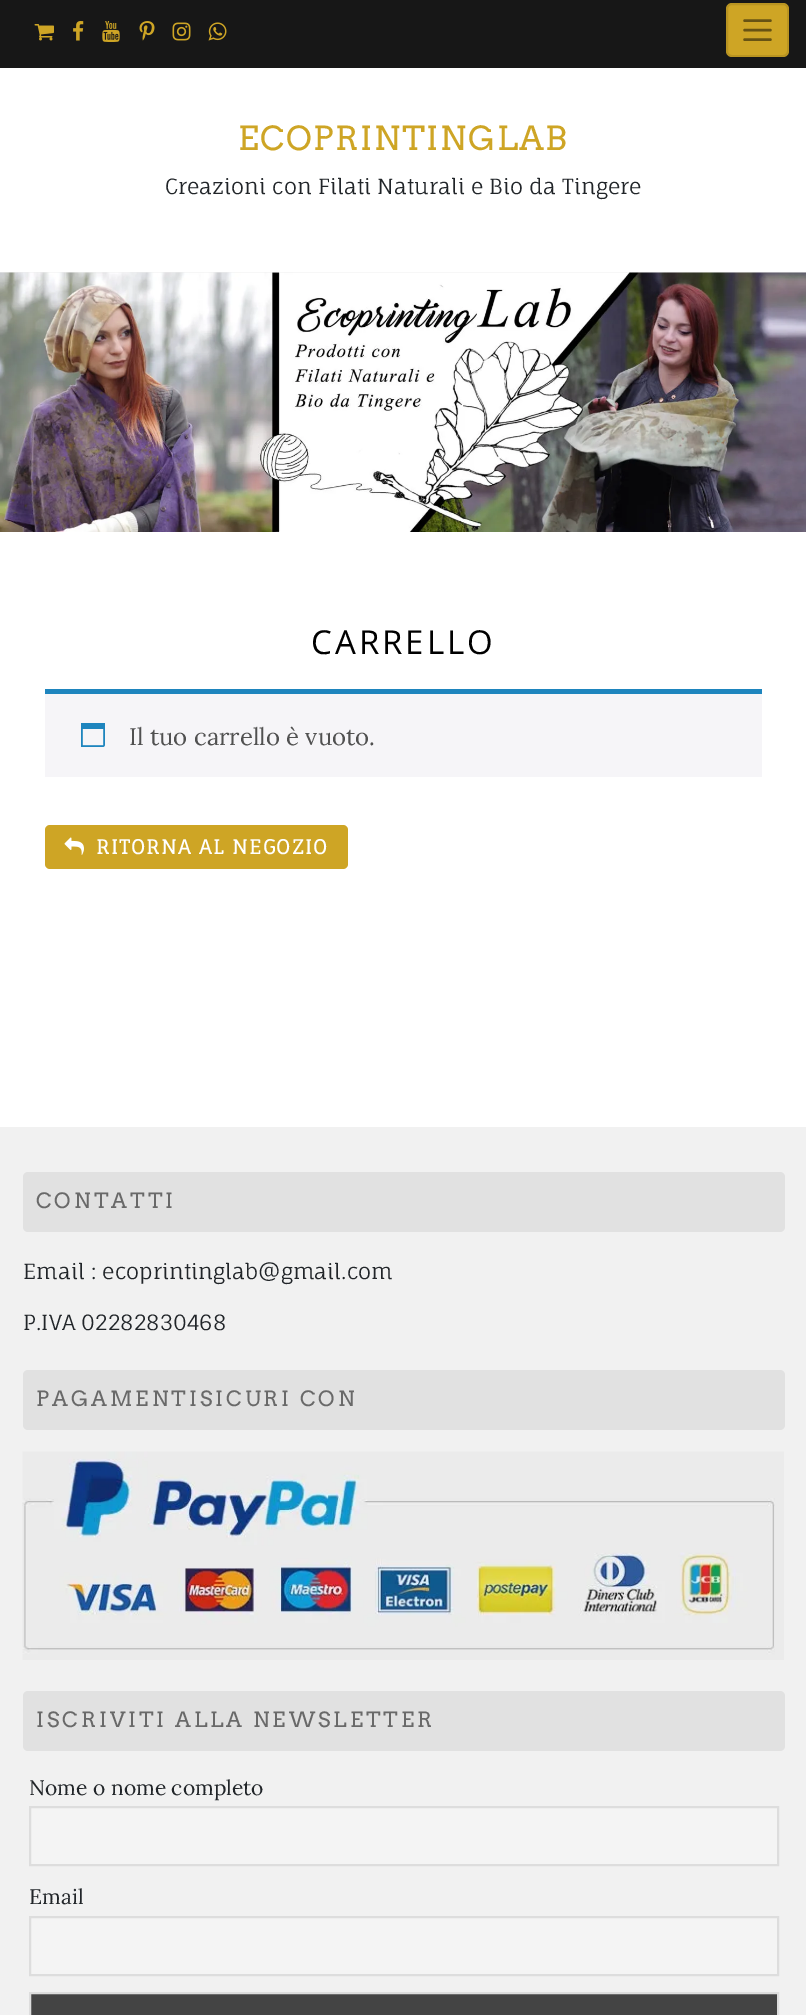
%!PS-Adobe-3.0
%%BoundingBox: 0 0 806 2015
%%LanguageLevel: 3
%%Pages: 1
%%EndComments
%%BeginProlog
/setalpha { dup .setfillconstantalpha .setstrokeconstantalpha } def
/rrect { 5 dict begin { /r /h /w /y /x } { exch def } forall
  x r add y moveto x w add y 2 copy h add r arct x w add y h add x 1 index r arct
  x y h add x y r arct x y 2 copy exch w add exch r arct closepath end } def
/drawimage { 5 dict begin { /h /w /y /x /name } { exch def } forall
  gsave x y translate w h scale
  w h 8 [w 0 0 h 0 0] name (r) file false 3 colorimage grestore end } def
%%EndProlog
%%BeginSetup
<< /PageSize [806 2015] /PageUsesTransparency true >> setpagedevice
%%EndSetup
%%Page: 1 1
0 .pushpdf14devicefilter
0 2015 translate 1 -1 scale
4 setmiterlimit
1 setgray
0 0 806 2015 rectfill
0.09 setgray
0 0 806 68 rectfill
(images/1.raw) 34 24 20 17 drawimage
(images/2.raw) 73 21 11 20 drawimage
(images/3.raw) 102 21 18 21 drawimage
(images/4.raw) 139 21 16 20 drawimage
(images/5.raw) 172 22 19 19 drawimage
(images/6.raw) 208 22 19 19 drawimage
0.808 0.647 0.145 setrgbcolor
726 3 63 54 6 rrect fill
0.1 setalpha
0 setgray
2 setlinewidth
727 4 61 52 5 rrect stroke
1 setalpha
0.404 0.325 0.075 setrgbcolor
2.4 setlinewidth
1 setlinecap
newpath 744.5 20.5 moveto 770.5 20.5 lineto 744.5 30 moveto 770.5 30 lineto 744.5 39.5 moveto 770.5 39.5 lineto stroke
0.933 setgray
0 272 806 1 rectfill
(images/7.raw) 0 272 806 260 drawimage
0.965 0.961 0.973 setrgbcolor
45 694 717 83 rectfill
0.118 0.522 0.745 setrgbcolor
45 689 717 5 rectfill
(images/8.raw) 81 723 24 24 drawimage
0.808 0.647 0.145 setrgbcolor
45 825 303 44 5 rrect fill
(images/9.raw) 64 837 20 18 drawimage
0.945 setgray
0 1127 806 888 rectfill
0.882 setgray
23 1172 762 60 5 rrect fill
23 1370 762 60 5 rrect fill
(images/10.raw) 22 1451 762 209 drawimage
23 1691 762 60 5 rrect fill
0.957 setgray
newpath 30 1807 moveto 778 1807 lineto 778 1865 lineto 30 1865 lineto closepath gsave fill grestore
0.867 setgray
2 setlinewidth
0 setlinecap
stroke
0.957 setgray
newpath 30 1917 moveto 778 1917 lineto 778 1975 lineto 30 1975 lineto closepath gsave fill grestore
0.867 setgray
stroke
0.267 setgray
newpath 30 1993 moveto 778 1993 lineto 778 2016 lineto 30 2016 lineto closepath gsave fill grestore
0.867 setgray
stroke
/Arvo-Regular [33 0 0 -33 0 0] selectfont
0.808 0.647 0.145 setrgbcolor
238 150 moveto 1.5 0 (ECOPRINTINGLAB) ashow
/FaunaOne-Regular [21 0 0 -21 0 0] selectfont
0.129 0.145 0.161 setrgbcolor
165 194 moveto (Creazioni con Filati Naturali e Bio da Tingere) show
/OpenSans-Regular [33 0 0 -33 0 0] selectfont
0 setgray
311 654 moveto 3 0 (CARRELLO) ashow
/Lora-Regular [24 0 0 -24 0 0] selectfont
0.318 setgray
129 745 moveto (Il tuo carrello è vuoto.) show
/FaunaOne-Bold [19.5 0 0 -19.5 0 0] selectfont
1 setgray
96 854 moveto 1.5 0 (RITORNA AL NEGOZIO) ashow
/Arvo-Regular [21 0 0 -21 0 0] selectfont
0.412 setgray
36 1208 moveto 3 0 (CONTATTI) ashow
/FaunaOne-Regular [21 0 0 -21 0 0] selectfont
0.129 0.145 0.161 setrgbcolor
23 1279 moveto (Email : ecoprintinglab@gmail.com) show
23 1330 moveto (P.IVA 02282830468) show
/Arvo-Regular [21 0 0 -21 0 0] selectfont
0.412 setgray
36 1406 moveto 3 0 (PAGAMENTISICURI CON) ashow
36 1727 moveto 3 0 (ISCRIVITI ALLA NEWSLETTER) ashow
/Lora-Regular [21 0 0 -21 0 0] selectfont
0.129 0.145 0.161 setrgbcolor
29 1795 moveto (Nome o nome completo) show
29 1904 moveto (Email) show
.poppdf14devicefilter showpage
%%EOF
